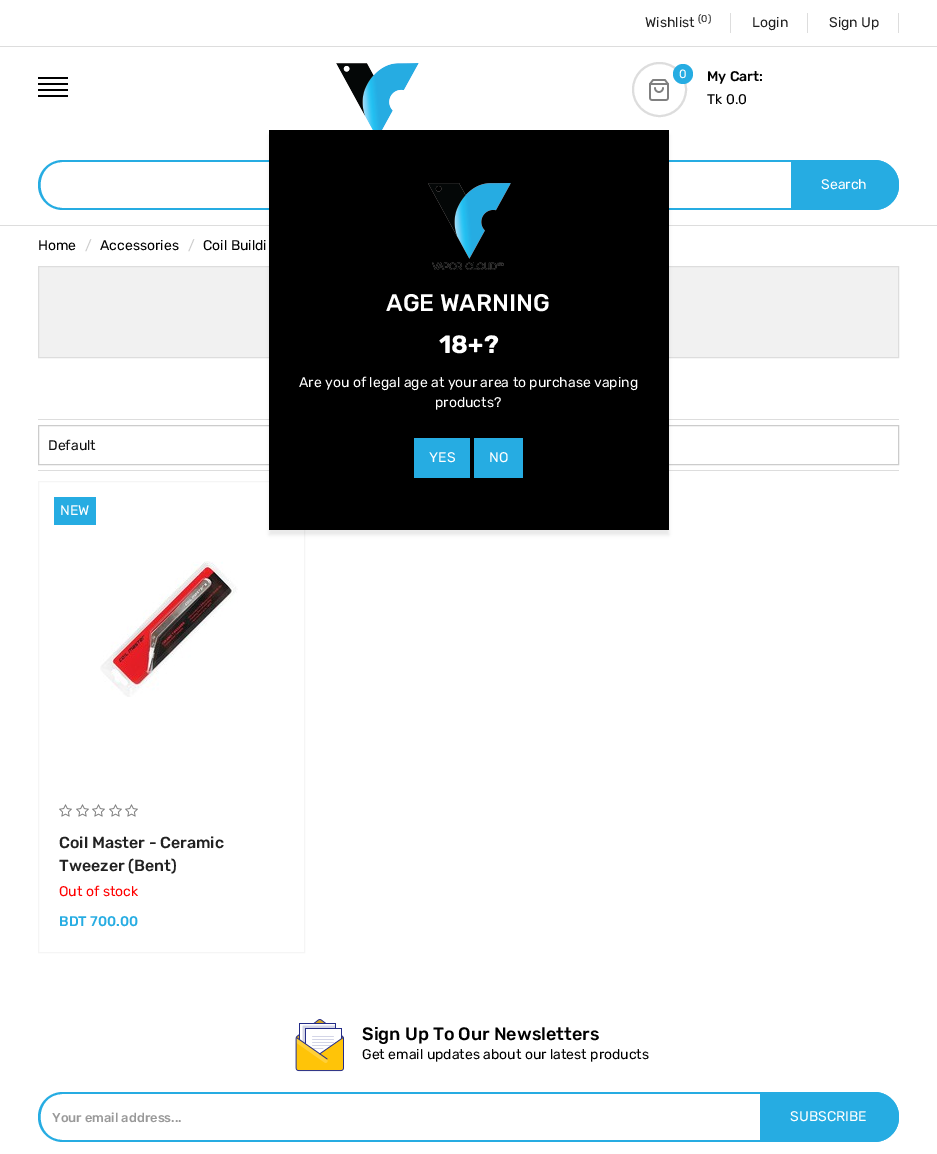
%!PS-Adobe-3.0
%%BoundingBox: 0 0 937 1154
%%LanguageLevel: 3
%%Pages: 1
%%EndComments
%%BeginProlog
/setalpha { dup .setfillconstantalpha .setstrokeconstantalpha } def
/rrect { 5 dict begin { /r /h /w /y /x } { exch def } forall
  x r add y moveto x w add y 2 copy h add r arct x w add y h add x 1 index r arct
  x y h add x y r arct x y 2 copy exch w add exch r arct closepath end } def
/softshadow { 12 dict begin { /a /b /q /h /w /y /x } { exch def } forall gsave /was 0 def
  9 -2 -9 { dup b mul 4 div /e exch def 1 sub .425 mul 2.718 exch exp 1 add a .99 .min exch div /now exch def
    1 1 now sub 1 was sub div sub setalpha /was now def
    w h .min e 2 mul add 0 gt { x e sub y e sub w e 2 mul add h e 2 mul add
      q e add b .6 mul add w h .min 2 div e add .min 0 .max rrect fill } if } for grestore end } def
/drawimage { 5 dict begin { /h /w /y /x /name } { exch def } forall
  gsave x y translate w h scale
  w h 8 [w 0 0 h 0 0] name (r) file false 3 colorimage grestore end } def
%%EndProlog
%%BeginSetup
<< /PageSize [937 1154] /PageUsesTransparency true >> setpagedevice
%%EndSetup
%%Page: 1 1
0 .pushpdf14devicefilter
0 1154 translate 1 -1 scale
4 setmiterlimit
1 setgray
0 0 937 1154 rectfill
0.867 setgray
0 46 937 1 rectfill
730 13 1 20 rectfill
807 13 1 20 rectfill
898 13 1 20 rectfill
0 225 937 1 rectfill
0 setgray
38 77 30 2 rectfill
38 83 30 2 rectfill
38 89 30 2 rectfill
38 95 30 2 rectfill
(images/1.raw) 336 63 83 67 drawimage
0.867 setgray
2 setlinewidth
newpath 659.5 89.5 26.5 0 360 arc closepath stroke
0.149 0.675 0.886 setrgbcolor
newpath 683 74 10 0 360 arc closepath fill
(images/2.raw) 649 79 20 22 drawimage
newpath 63 160 moveto 792 160 lineto 792 210 lineto 63 210 lineto 49 210 38 199 38 185 curveto 38 171 49 160 63 160 curveto closepath 63 162 moveto 792 162 lineto 792 208 lineto 63 208 lineto 33 208 33 162 63 162 curveto closepath eofill
newpath 791 160 moveto 874 160 lineto 888 160 899 171 899 185 curveto 899 199 888 210 874 210 curveto 791 210 lineto closepath fill
newpath 791 160 moveto 874 160 lineto 888 160 899 171 899 185 curveto 899 199 888 210 874 210 curveto 791 210 lineto closepath 791 162 moveto 874 162 lineto 887 162 897 172 897 185 curveto 897 198 887 208 874 208 curveto 791 208 lineto closepath eofill
0.945 setgray
newpath 38.5 266.5 moveto 898.5 266.5 lineto 898.5 357.5 lineto 38.5 357.5 lineto closepath gsave fill grestore
0.867 setgray
1 setlinewidth
stroke
38 419 861 1 rectfill
38 470 861 1 rectfill
0.8 setgray
38.5 425.5 414 39 rectstroke
483.5 425.5 415 39 rectstroke
0.961 setgray
38.5 481.5 266 471 rectstroke
0.149 0.675 0.886 setrgbcolor
54 497 42 28 rectfill
(images/3.raw) 100 561 138 136 drawimage
(images/4.raw) 59 804 13 13 drawimage
(images/4.raw) 76 804 13 13 drawimage
(images/4.raw) 92 804 13 13 drawimage
(images/4.raw) 109 804 13 13 drawimage
(images/4.raw) 125 804 13 13 drawimage
0 setgray
269 135 400 400 0 1.5 0.08 softshadow
269 130 400 400 rectfill
(images/5.raw) 428 183 83 87 drawimage
0.149 0.675 0.886 setrgbcolor
414 438 56 40 rectfill
474 438 49 40 rectfill
(images/6.raw) 295 1019 49 53 drawimage
newpath 63 1092 moveto 760 1092 lineto 760 1142 lineto 63 1142 lineto 49 1142 38 1131 38 1117 curveto 38 1103 49 1092 63 1092 curveto closepath 63 1094 moveto 760 1094 lineto 760 1140 lineto 63 1140 lineto 33 1140 33 1094 63 1094 curveto closepath eofill
newpath 760 1092 moveto 874 1092 lineto 888 1092 899 1103 899 1117 curveto 899 1131 888 1142 874 1142 curveto 760 1142 lineto closepath fill
newpath 760 1092 moveto 874 1092 lineto 888 1092 899 1103 899 1117 curveto 899 1131 888 1142 874 1142 curveto 760 1142 lineto closepath 760 1094 moveto 874 1094 lineto 887 1094 897 1104 897 1117 curveto 897 1130 887 1140 874 1140 curveto 760 1140 lineto closepath eofill
/Rubik-Regular [14 0 0 -14 0 0] selectfont
0.133 setgray
645 27 moveto (Wishlist) show
/Rubik-Regular [10 0 0 -10 0 0] selectfont
698 22 moveto (\(0\)) show
/Rubik-Regular [14 0 0 -14 0 0] selectfont
752 27 moveto (Login) show
829 27 moveto (Sign Up) show
/Rubik-Regular [12 0 0 -12 0 0] selectfont
1 setgray
679 78 moveto (0) show
/Rubik-Medium [14 0 0 -14 0 0] selectfont
0 setgray
707 81 moveto (My Cart:) show
/Rubik-Regular [14 0 0 -14 0 0] selectfont
707 104 moveto (Tk 0.0) show
1 setgray
821 189 moveto (Search) show
0 setgray
38 250 moveto (Home) show
0.8 setgray
85 250 moveto (/) show
0 setgray
100 250 moveto (Accessories) show
0.8 setgray
188 250 moveto (/) show
0 setgray
203 250 moveto (Coil Buildi) show
0.067 setgray
48 450 moveto (Default) show
1 setgray
60 515 moveto (NEW) show
/Rubik-Medium [16 0 0 -16 0 0] selectfont
0.133 setgray
59 848 moveto (Coil Master - Ceramic) show
59 871 moveto (Tweezer \(Bent\)) show
/Rubik-Regular [14 0 0 -14 0 0] selectfont
1 0 0 setrgbcolor
59 896 moveto (Out of stock) show
/Rubik-Medium [14 0 0 -14 0 0] selectfont
0.149 0.675 0.886 setrgbcolor
59 926 moveto (BDT 700.00) show
/Rubik-Medium [24 0 0 -24 0 0] selectfont
1 setgray
386 311 moveto (AGE WARNING) show
/Rubik-Bold [25 0 0 -25 0 0] selectfont
439 353 moveto (18+?) show
/Rubik-Regular [14 0 0 -14 0 0] selectfont
299 387 moveto (Are you of legal age at your area to purchase vaping) show
435 407 moveto (products?) show
429 462 moveto (YES) show
489 462 moveto (NO) show
/Rubik-Medium [18 0 0 -18 0 0] selectfont
0 setgray
362 1040 moveto (Sign Up To Our Newsletters) show
/Rubik-Regular [14 0 0 -14 0 0] selectfont
362 1059 moveto (Get email updates about our latest products) show
/Rubik-Medium [13 0 0 -13 0 0] selectfont
0.6 setgray
52 1122 moveto (Your email address...) show
/Rubik-Regular [14 0 0 -14 0 0] selectfont
1 setgray
790 1121 moveto (SUBSCRIBE) show
.poppdf14devicefilter showpage
%%EOF
